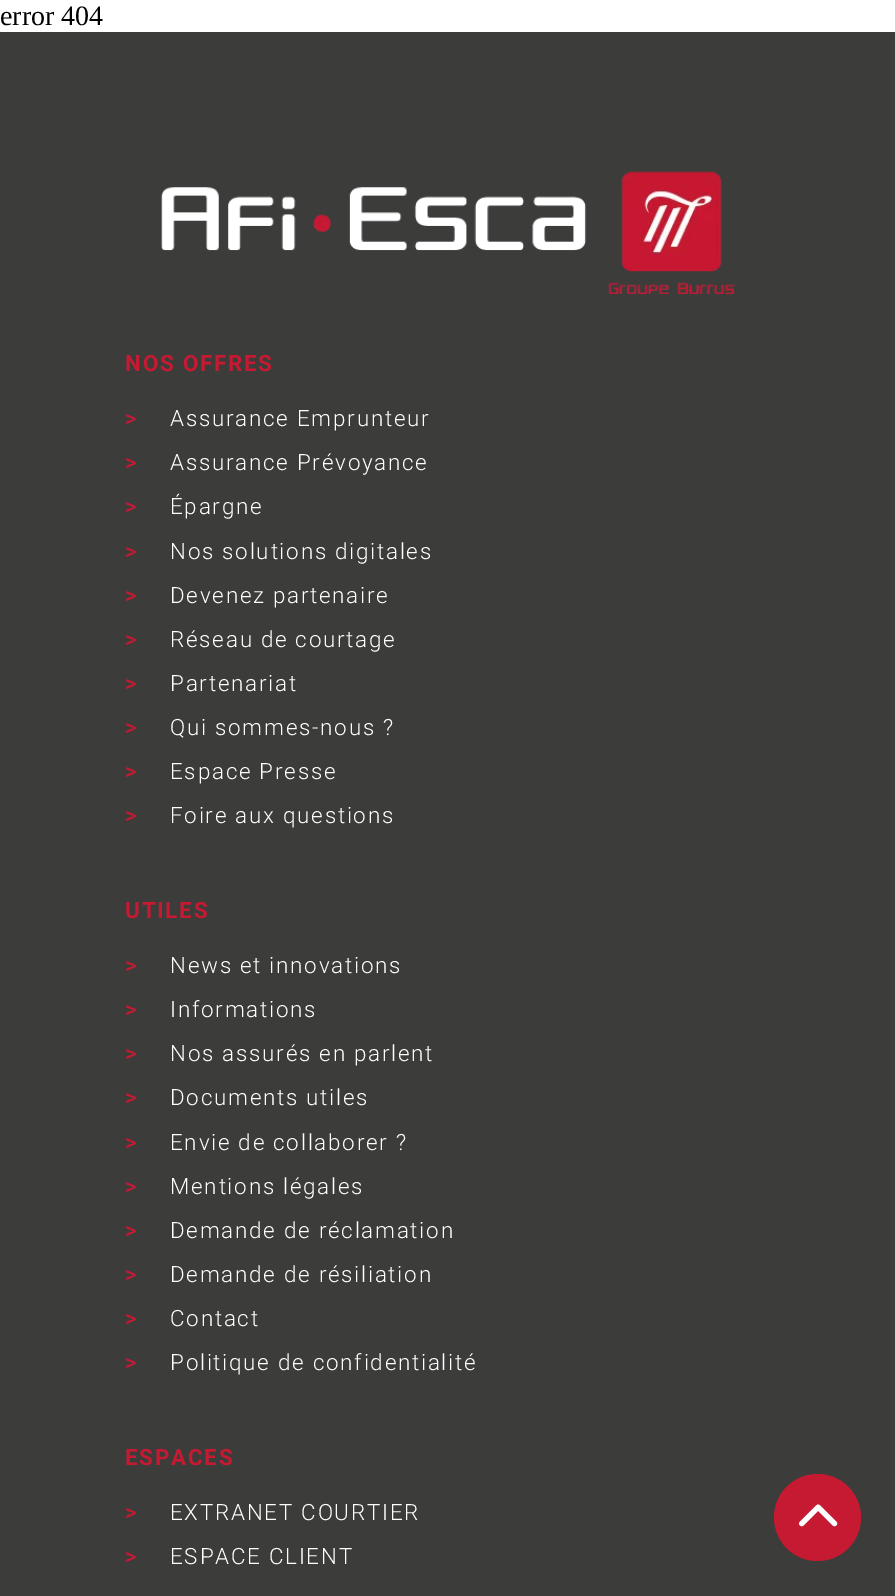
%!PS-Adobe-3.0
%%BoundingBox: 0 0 895 1596
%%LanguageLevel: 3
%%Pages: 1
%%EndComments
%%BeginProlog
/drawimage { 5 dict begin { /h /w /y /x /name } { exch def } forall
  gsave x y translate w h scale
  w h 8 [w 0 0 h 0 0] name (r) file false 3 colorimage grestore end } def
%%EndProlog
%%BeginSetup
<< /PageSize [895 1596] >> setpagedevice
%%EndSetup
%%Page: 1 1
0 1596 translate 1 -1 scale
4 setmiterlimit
1 setgray
0 0 895 1596 rectfill
0.235 0.235 0.231 setrgbcolor
0 32 895 1564 rectfill
(images/1.raw) 161 171 574 123 drawimage
0.776 0.098 0.196 setrgbcolor
newpath 817.5 1517.5 43.5 0 360 arc closepath fill
(images/2.raw) 799 1504 39 23 drawimage
/LiberationSerif-Regular [28 0 0 -28 0 0] selectfont
0 setgray
0 25 moveto (error 404) show
/Roboto-Bold [22.4 0 0 -22.4 0 0] selectfont
0.776 0.098 0.196 setrgbcolor
125 371 moveto 1.75 0 (NOS OFFRES) ashow
/Roboto-Medium [22.4 0 0 -22.4 0 0] selectfont
125 426 moveto 1.75 0 (>) ashow
/Roboto-Light [22.4 0 0 -22.4 0 0] selectfont
1 setgray
170 426 moveto 1.75 0 (Assurance Emprunteur) ashow
/Roboto-Medium [22.4 0 0 -22.4 0 0] selectfont
0.776 0.098 0.196 setrgbcolor
125 470 moveto 1.75 0 (>) ashow
/Roboto-Light [22.4 0 0 -22.4 0 0] selectfont
1 setgray
170 470 moveto 1.75 0 (Assurance Prévoyance) ashow
/Roboto-Medium [22.4 0 0 -22.4 0 0] selectfont
0.776 0.098 0.196 setrgbcolor
125 514 moveto 1.75 0 (>) ashow
/Roboto-Light [22.4 0 0 -22.4 0 0] selectfont
1 setgray
170 514 moveto 1.75 0 (Épargne) ashow
/Roboto-Medium [22.4 0 0 -22.4 0 0] selectfont
0.776 0.098 0.196 setrgbcolor
125 559 moveto 1.75 0 (>) ashow
/Roboto-Light [22.4 0 0 -22.4 0 0] selectfont
1 setgray
170 559 moveto 1.75 0 (Nos solutions digitales) ashow
/Roboto-Medium [22.4 0 0 -22.4 0 0] selectfont
0.776 0.098 0.196 setrgbcolor
125 603 moveto 1.75 0 (>) ashow
/Roboto-Light [22.4 0 0 -22.4 0 0] selectfont
1 setgray
170 603 moveto 1.75 0 (Devenez partenaire) ashow
/Roboto-Medium [22.4 0 0 -22.4 0 0] selectfont
0.776 0.098 0.196 setrgbcolor
125 647 moveto 1.75 0 (>) ashow
/Roboto-Light [22.4 0 0 -22.4 0 0] selectfont
1 setgray
170 647 moveto 1.75 0 (Réseau de courtage) ashow
/Roboto-Medium [22.4 0 0 -22.4 0 0] selectfont
0.776 0.098 0.196 setrgbcolor
125 691 moveto 1.75 0 (>) ashow
/Roboto-Light [22.4 0 0 -22.4 0 0] selectfont
1 setgray
170 691 moveto 1.75 0 (Partenariat) ashow
/Roboto-Medium [22.4 0 0 -22.4 0 0] selectfont
0.776 0.098 0.196 setrgbcolor
125 735 moveto 1.75 0 (>) ashow
/Roboto-Light [22.4 0 0 -22.4 0 0] selectfont
1 setgray
170 735 moveto 1.75 0 (Qui sommes-nous ?) ashow
/Roboto-Medium [22.4 0 0 -22.4 0 0] selectfont
0.776 0.098 0.196 setrgbcolor
125 779 moveto 1.75 0 (>) ashow
/Roboto-Light [22.4 0 0 -22.4 0 0] selectfont
1 setgray
170 779 moveto 1.75 0 (Espace Presse) ashow
/Roboto-Medium [22.4 0 0 -22.4 0 0] selectfont
0.776 0.098 0.196 setrgbcolor
125 823 moveto 1.75 0 (>) ashow
/Roboto-Light [22.4 0 0 -22.4 0 0] selectfont
1 setgray
170 823 moveto 1.75 0 (Foire aux questions) ashow
/Roboto-Bold [22.4 0 0 -22.4 0 0] selectfont
0.776 0.098 0.196 setrgbcolor
125 918 moveto 1.75 0 (UTILES) ashow
/Roboto-Medium [22.4 0 0 -22.4 0 0] selectfont
125 973 moveto 1.75 0 (>) ashow
/Roboto-Light [22.4 0 0 -22.4 0 0] selectfont
1 setgray
170 973 moveto 1.75 0 (News et innovations) ashow
/Roboto-Medium [22.4 0 0 -22.4 0 0] selectfont
0.776 0.098 0.196 setrgbcolor
125 1017 moveto 1.75 0 (>) ashow
/Roboto-Light [22.4 0 0 -22.4 0 0] selectfont
1 setgray
170 1017 moveto 1.75 0 (Informations) ashow
/Roboto-Medium [22.4 0 0 -22.4 0 0] selectfont
0.776 0.098 0.196 setrgbcolor
125 1061 moveto 1.75 0 (>) ashow
/Roboto-Light [22.4 0 0 -22.4 0 0] selectfont
1 setgray
170 1061 moveto 1.75 0 (Nos assurés en parlent) ashow
/Roboto-Medium [22.4 0 0 -22.4 0 0] selectfont
0.776 0.098 0.196 setrgbcolor
125 1105 moveto 1.75 0 (>) ashow
/Roboto-Light [22.4 0 0 -22.4 0 0] selectfont
1 setgray
170 1105 moveto 1.75 0 (Documents utiles) ashow
/Roboto-Medium [22.4 0 0 -22.4 0 0] selectfont
0.776 0.098 0.196 setrgbcolor
125 1150 moveto 1.75 0 (>) ashow
/Roboto-Light [22.4 0 0 -22.4 0 0] selectfont
1 setgray
170 1150 moveto 1.75 0 (Envie de collaborer ?) ashow
/Roboto-Medium [22.4 0 0 -22.4 0 0] selectfont
0.776 0.098 0.196 setrgbcolor
125 1194 moveto 1.75 0 (>) ashow
/Roboto-Light [22.4 0 0 -22.4 0 0] selectfont
1 setgray
170 1194 moveto 1.75 0 (Mentions légales) ashow
/Roboto-Medium [22.4 0 0 -22.4 0 0] selectfont
0.776 0.098 0.196 setrgbcolor
125 1238 moveto 1.75 0 (>) ashow
/Roboto-Light [22.4 0 0 -22.4 0 0] selectfont
1 setgray
170 1238 moveto 1.75 0 (Demande de réclamation) ashow
/Roboto-Medium [22.4 0 0 -22.4 0 0] selectfont
0.776 0.098 0.196 setrgbcolor
125 1282 moveto 1.75 0 (>) ashow
/Roboto-Light [22.4 0 0 -22.4 0 0] selectfont
1 setgray
170 1282 moveto 1.75 0 (Demande de résiliation) ashow
/Roboto-Medium [22.4 0 0 -22.4 0 0] selectfont
0.776 0.098 0.196 setrgbcolor
125 1326 moveto 1.75 0 (>) ashow
/Roboto-Light [22.4 0 0 -22.4 0 0] selectfont
1 setgray
170 1326 moveto 1.75 0 (Contact) ashow
/Roboto-Medium [22.4 0 0 -22.4 0 0] selectfont
0.776 0.098 0.196 setrgbcolor
125 1370 moveto 1.75 0 (>) ashow
/Roboto-Light [22.4 0 0 -22.4 0 0] selectfont
1 setgray
170 1370 moveto 1.75 0 (Politique de confidentialité) ashow
/Roboto-Bold [22.4 0 0 -22.4 0 0] selectfont
0.776 0.098 0.196 setrgbcolor
125 1465 moveto 1.75 0 (ESPACES) ashow
/Roboto-Medium [22.4 0 0 -22.4 0 0] selectfont
125 1520 moveto 1.75 0 (>) ashow
/Roboto-Light [22.4 0 0 -22.4 0 0] selectfont
1 setgray
170 1520 moveto 1.75 0 (EXTRANET COURTIER) ashow
/Roboto-Medium [22.4 0 0 -22.4 0 0] selectfont
0.776 0.098 0.196 setrgbcolor
125 1564 moveto 1.75 0 (>) ashow
/Roboto-Light [22.4 0 0 -22.4 0 0] selectfont
1 setgray
170 1564 moveto 1.75 0 (ESPACE CLIENT) ashow
showpage
%%EOF
